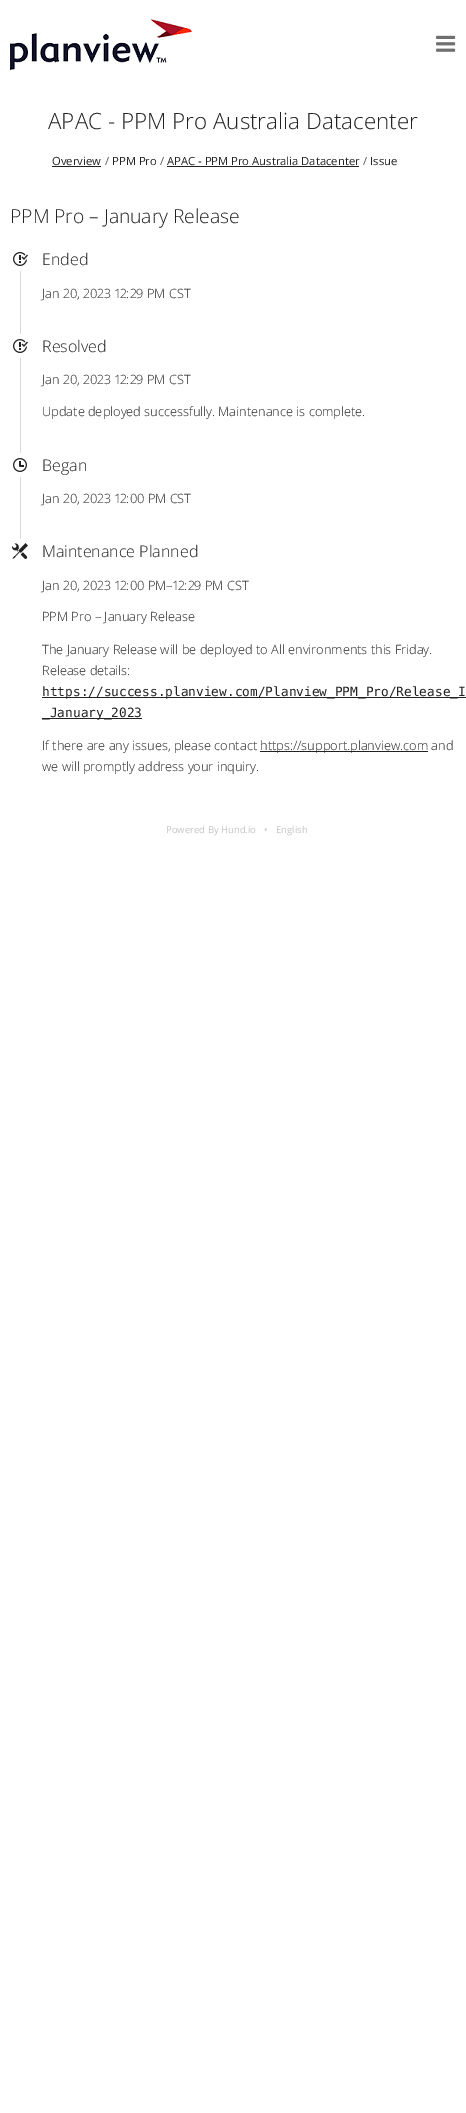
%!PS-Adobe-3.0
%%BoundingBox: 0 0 466 2113
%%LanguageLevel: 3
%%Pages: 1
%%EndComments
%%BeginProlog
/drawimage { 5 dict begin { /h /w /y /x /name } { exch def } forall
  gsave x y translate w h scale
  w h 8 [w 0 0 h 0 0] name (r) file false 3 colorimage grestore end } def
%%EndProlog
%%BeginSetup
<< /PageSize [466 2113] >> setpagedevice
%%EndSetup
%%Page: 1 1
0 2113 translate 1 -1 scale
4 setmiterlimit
1 setgray
0 0 466 2113 rectfill
(images/1.raw) 10 19 182 51 drawimage
(images/2.raw) 436 35 20 17 drawimage
0.133 setgray
52 166 49 1 rectfill
167 166 192 1 rectfill
0.851 setgray
20 271 1 268 rectfill
(images/3.raw) 13 252 15 14 drawimage
1 setgray
20 334 1 24 rectfill
(images/3.raw) 13 339 15 14 drawimage
20 453 1 24 rectfill
(images/4.raw) 13 458 14 14 drawimage
(images/5.raw) 12 543 16 16 drawimage
0.133 setgray
42 697 424 1 rectfill
42 718 100 1 rectfill
260 751 168 1 rectfill
/OpenSans-Light [22.4 0 0 -22.4 0 0] selectfont
48 129 moveto (APAC - PPM Pro Australia Datacenter) show
/OpenSans-Regular [11.25 0 0 -11.25 0 0] selectfont
52 165 moveto (Overview) show
0.337 setgray
105 165 moveto (/) show
0.133 setgray
112 165 moveto (PPM Pro) show
0.337 setgray
160 165 moveto (/) show
0.133 setgray
167 165 moveto (APAC - PPM Pro Australia Datacenter) show
0.337 setgray
363 165 moveto (/) show
0.133 setgray
370 165 moveto (Issue) show
/OpenSans-Light [19.25 0 0 -19.25 0 0] selectfont
10 223 moveto (PPM Pro – January Release) show
/OpenSans-Light [16 0 0 -16 0 0] selectfont
42 265 moveto (Ended) show
/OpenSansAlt-Light [12.8 0 0 -12.8 0 0] selectfont
42 298 moveto (Jan 20, 2023 12:29 PM CST) show
/OpenSans-Light [16 0 0 -16 0 0] selectfont
42 352 moveto (Resolved) show
/OpenSansAlt-Light [12.8 0 0 -12.8 0 0] selectfont
42 384 moveto (Jan 20, 2023 12:29 PM CST) show
/OpenSans-Light [12.8 0 0 -12.8 0 0] selectfont
42 416 moveto (Update deployed successfully. Maintenance is complete.) show
/OpenSans-Light [16 0 0 -16 0 0] selectfont
42 471 moveto (Began) show
/OpenSansAlt-Light [12.8 0 0 -12.8 0 0] selectfont
42 503 moveto (Jan 20, 2023 12:00 PM CST) show
/OpenSans-Light [16 0 0 -16 0 0] selectfont
42 557 moveto (Maintenance Planned) show
/OpenSansAlt-Light [12.8 0 0 -12.8 0 0] selectfont
42 590 moveto (Jan 20, 2023 12:00 PM–12:29 PM CST) show
/OpenSans-Light [12.8 0 0 -12.8 0 0] selectfont
42 621 moveto (PPM Pro – January Release) show
42 654 moveto (The January Release will be deployed to All environments this Friday.) show
42 675 moveto (Release details:) show
/DejaVuSansMono-Regular [12.8 0 0 -12.8 0 0] selectfont
42 696 moveto (https://success.planview.com/Planview_PPM_Pro/Release_I) show
42 717 moveto (_January_2023) show
/OpenSans-Light [12.8 0 0 -12.8 0 0] selectfont
42 750 moveto (If there are any issues, please contact) show
260 750 moveto (https://support.planview.com and) show
42 771 moveto (we will promptly address your inquiry.) show
/OpenSans-Regular [9.5 0 0 -9.5 0 0] selectfont
0.769 setgray
166 833 moveto (Powered By Hund.io) show
264 833 moveto (•) show
276 833 moveto (English) show
showpage
%%EOF
